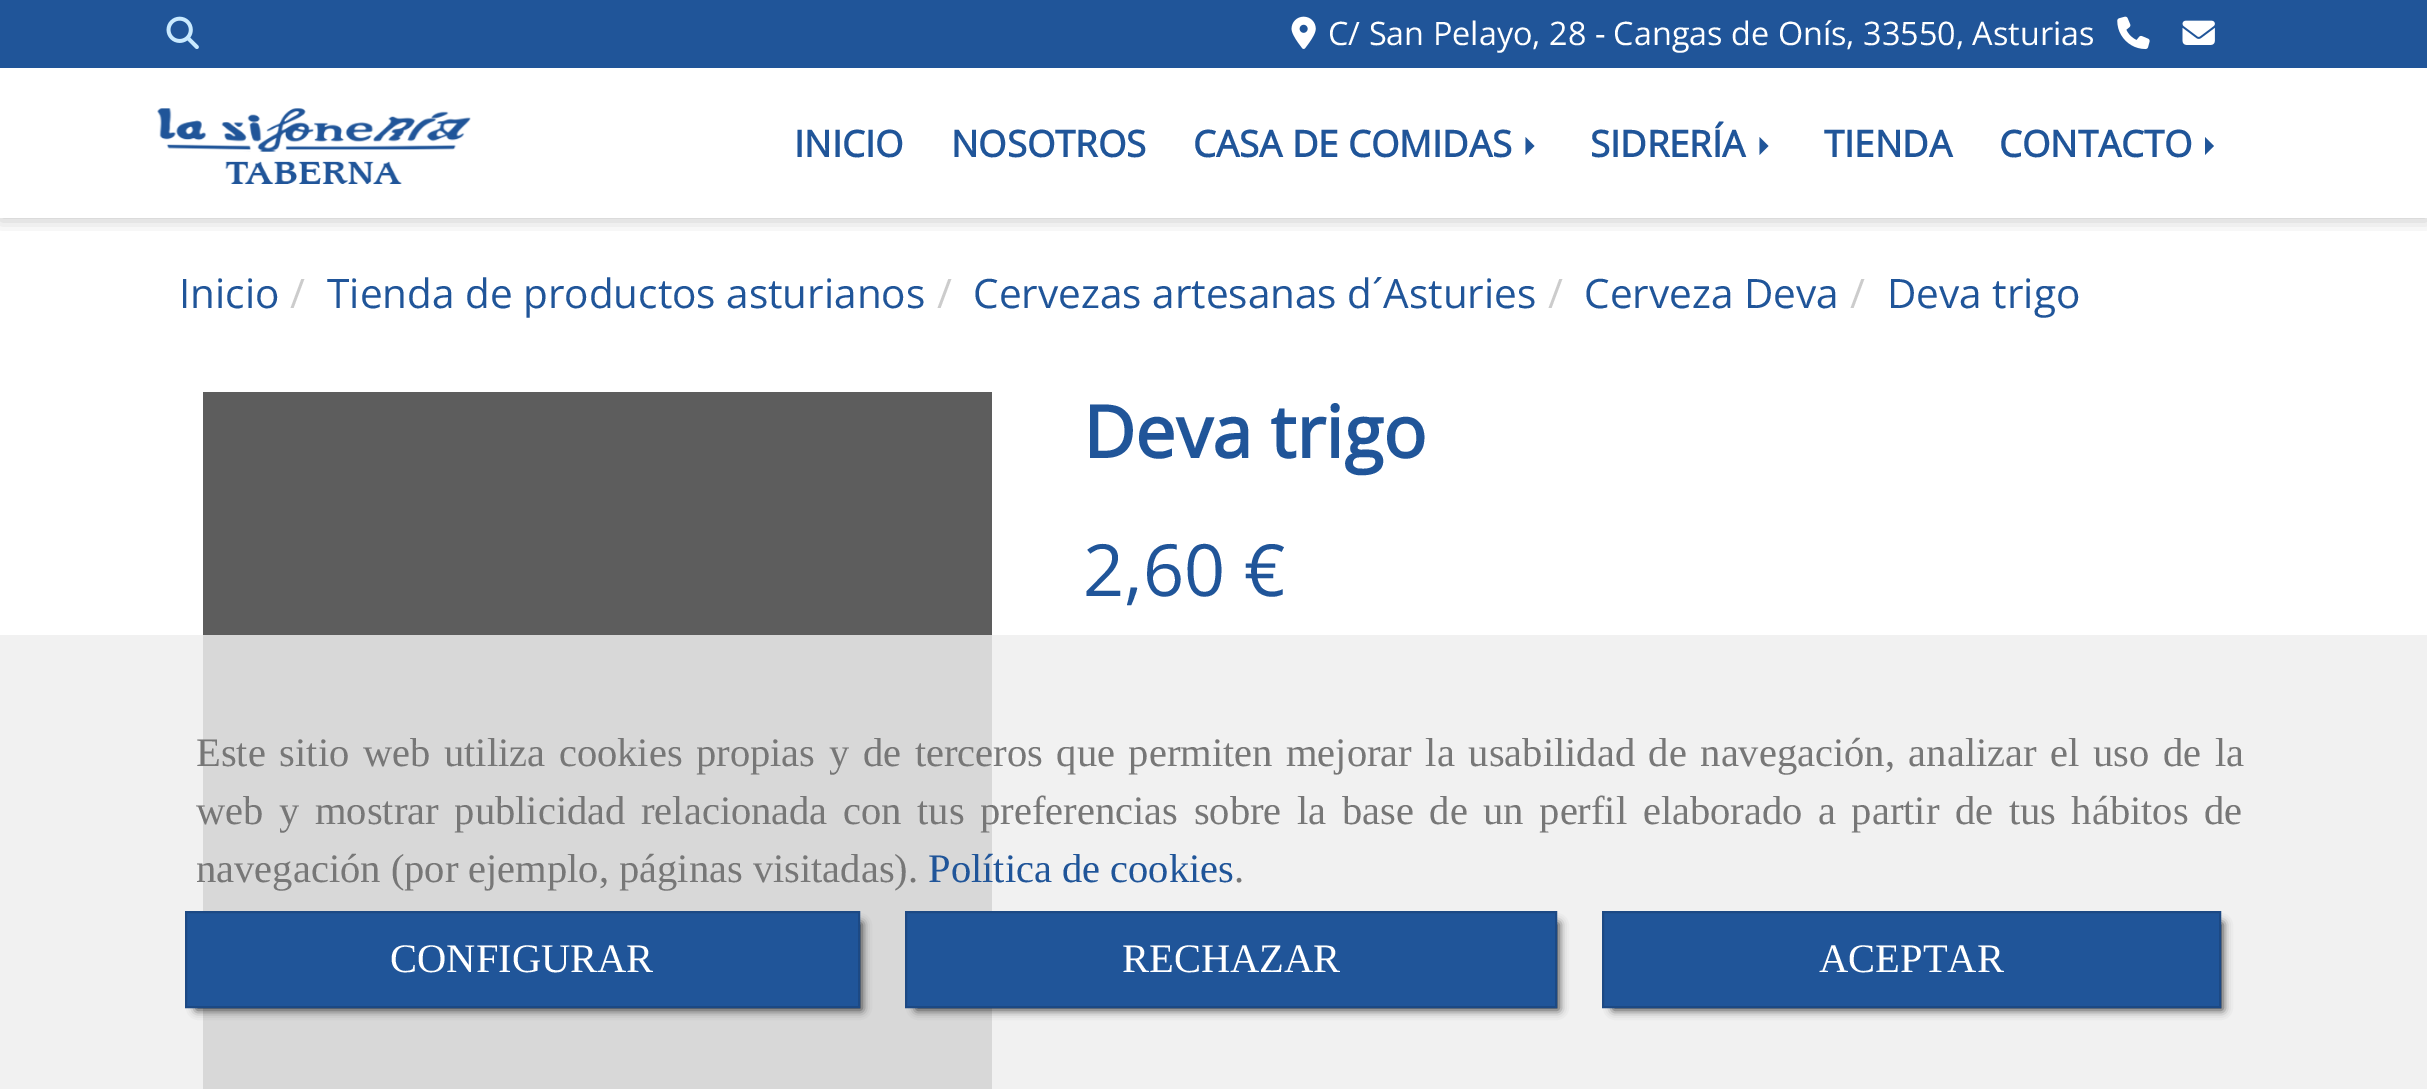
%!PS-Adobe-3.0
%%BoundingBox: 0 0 2427 1089
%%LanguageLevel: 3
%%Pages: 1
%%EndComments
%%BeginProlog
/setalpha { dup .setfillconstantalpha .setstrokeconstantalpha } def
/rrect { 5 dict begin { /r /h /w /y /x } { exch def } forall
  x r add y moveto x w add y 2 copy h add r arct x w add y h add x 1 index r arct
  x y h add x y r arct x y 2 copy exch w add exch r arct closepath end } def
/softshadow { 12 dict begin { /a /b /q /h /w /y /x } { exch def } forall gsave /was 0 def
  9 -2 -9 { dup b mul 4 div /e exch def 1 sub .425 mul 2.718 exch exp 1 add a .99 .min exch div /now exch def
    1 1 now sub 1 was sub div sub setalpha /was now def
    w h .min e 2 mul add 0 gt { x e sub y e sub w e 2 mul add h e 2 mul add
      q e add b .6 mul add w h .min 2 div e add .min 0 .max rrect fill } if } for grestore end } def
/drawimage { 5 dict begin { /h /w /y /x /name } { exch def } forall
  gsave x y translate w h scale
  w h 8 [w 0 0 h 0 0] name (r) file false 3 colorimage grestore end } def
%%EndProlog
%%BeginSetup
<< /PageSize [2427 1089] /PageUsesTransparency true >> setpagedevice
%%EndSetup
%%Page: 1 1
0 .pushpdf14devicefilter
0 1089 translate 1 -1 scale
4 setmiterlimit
1 setgray
0 0 2427 1089 rectfill
0.945 setgray
0 635 2427 454 rectfill
gsave
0 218 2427 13 rectclip
0 setgray
0 70 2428 151 0 8 0.2 softshadow
grestore
0.125 0.333 0.6 setrgbcolor
0 0 2427 68 rectfill
(images/1.raw) 166 16 33 33 drawimage
(images/2.raw) 1291 16 25 33 drawimage
(images/3.raw) 2117 16 33 34 drawimage
(images/4.raw) 2182 20 33 25 drawimage
(images/5.raw) 157 108 314 76 drawimage
newpath 1525.5 155 moveto 1525.5 137 lineto 1534.5 146 lineto closepath fill
newpath 1759.5 155 moveto 1759.5 137 lineto 1768.5 146 lineto closepath fill
newpath 2205 155 moveto 2205 137 lineto 2214 146 lineto closepath fill
0.365 setgray
203 392 789 243 rectfill
0.847 setgray
203 635 789 454 rectfill
0 setgray
196 923 666 87 0 4.5 0.75 softshadow
0.125 0.333 0.6 setrgbcolor
newpath 186 912 moveto 859 912 lineto 859 1007 lineto 186 1007 lineto closepath gsave fill grestore
0.11 0.286 0.518 setrgbcolor
2 setlinewidth
stroke
0 setgray
916 923 643 87 0 4.5 0.75 softshadow
0.125 0.333 0.6 setrgbcolor
newpath 906 912 moveto 1556 912 lineto 1556 1007 lineto 906 1007 lineto closepath gsave fill grestore
0.11 0.286 0.518 setrgbcolor
stroke
0 setgray
1613 923 610 87 0 4.5 0.75 softshadow
0.125 0.333 0.6 setrgbcolor
newpath 1603 912 moveto 2220 912 lineto 2220 1007 lineto 1603 1007 lineto closepath gsave fill grestore
0.11 0.286 0.518 setrgbcolor
stroke
/OpenSans-Regular [32.4 0 0 -32.4 0 0] selectfont
1 setgray
1328 45 moveto (C/ San Pelayo, 28 - Cangas de Onís, 33550, Asturias) show
/OpenSans-Bold [36.5 0 0 -36.5 0 0] selectfont
0.125 0.333 0.6 setrgbcolor
794 157 moveto (INICIO) show
951 157 moveto (NOSOTROS) show
1193 157 moveto (CASA DE COMIDAS) show
1590 157 moveto (SIDRERÍA) show
1824 157 moveto (TIENDA) show
1999 157 moveto (CONTACTO) show
/OpenSans-Regular [40.5 0 0 -40.5 0 0] selectfont
179 308 moveto (Inicio) show
0.8 setgray
290 308 moveto (/) show
0.125 0.333 0.6 setrgbcolor
327 308 moveto (Tienda de productos asturianos) show
0.8 setgray
937 308 moveto (/) show
0.125 0.333 0.6 setrgbcolor
973 308 moveto (Cervezas artesanas d´Asturies) show
0.8 setgray
1548 308 moveto (/) show
0.125 0.333 0.6 setrgbcolor
1584 308 moveto (Cerveza Deva) show
0.8 setgray
1850 308 moveto (/) show
0.125 0.333 0.6 setrgbcolor
1887 308 moveto (Deva trigo) show
/OpenSans-Bold [72 0 0 -72 0 0] selectfont
1083 458 moveto (Deva trigo) show
/OpenSans-Regular [72 0 0 -72 0 0] selectfont
1083 596 moveto (2,60 €) show
/LiberationSerif-Regular [40.5 0 0 -40.5 0 0] selectfont
0.467 setgray
196 766 moveto 3.5 0 32 (Este sitio web utiliza cookies propias y de terceros que permiten mejorar la usabilidad de navegación, analizar el uso de la) widthshow
196 824 moveto 5.5 0 32 (web y mostrar publicidad relacionada con tus preferencias sobre la base de un perfil elaborado a partir de tus hábitos de) widthshow
196 882 moveto (navegación \(por ejemplo, páginas visitadas\).) show
0.125 0.333 0.6 setrgbcolor
928 882 moveto (Política de cookies) show
0.467 setgray
1234 882 moveto (.) show
1 setgray
390 972 moveto (CONFIGURAR) show
1122 972 moveto (RECHAZAR) show
1819 972 moveto (ACEPTAR) show
.poppdf14devicefilter showpage
%%EOF
